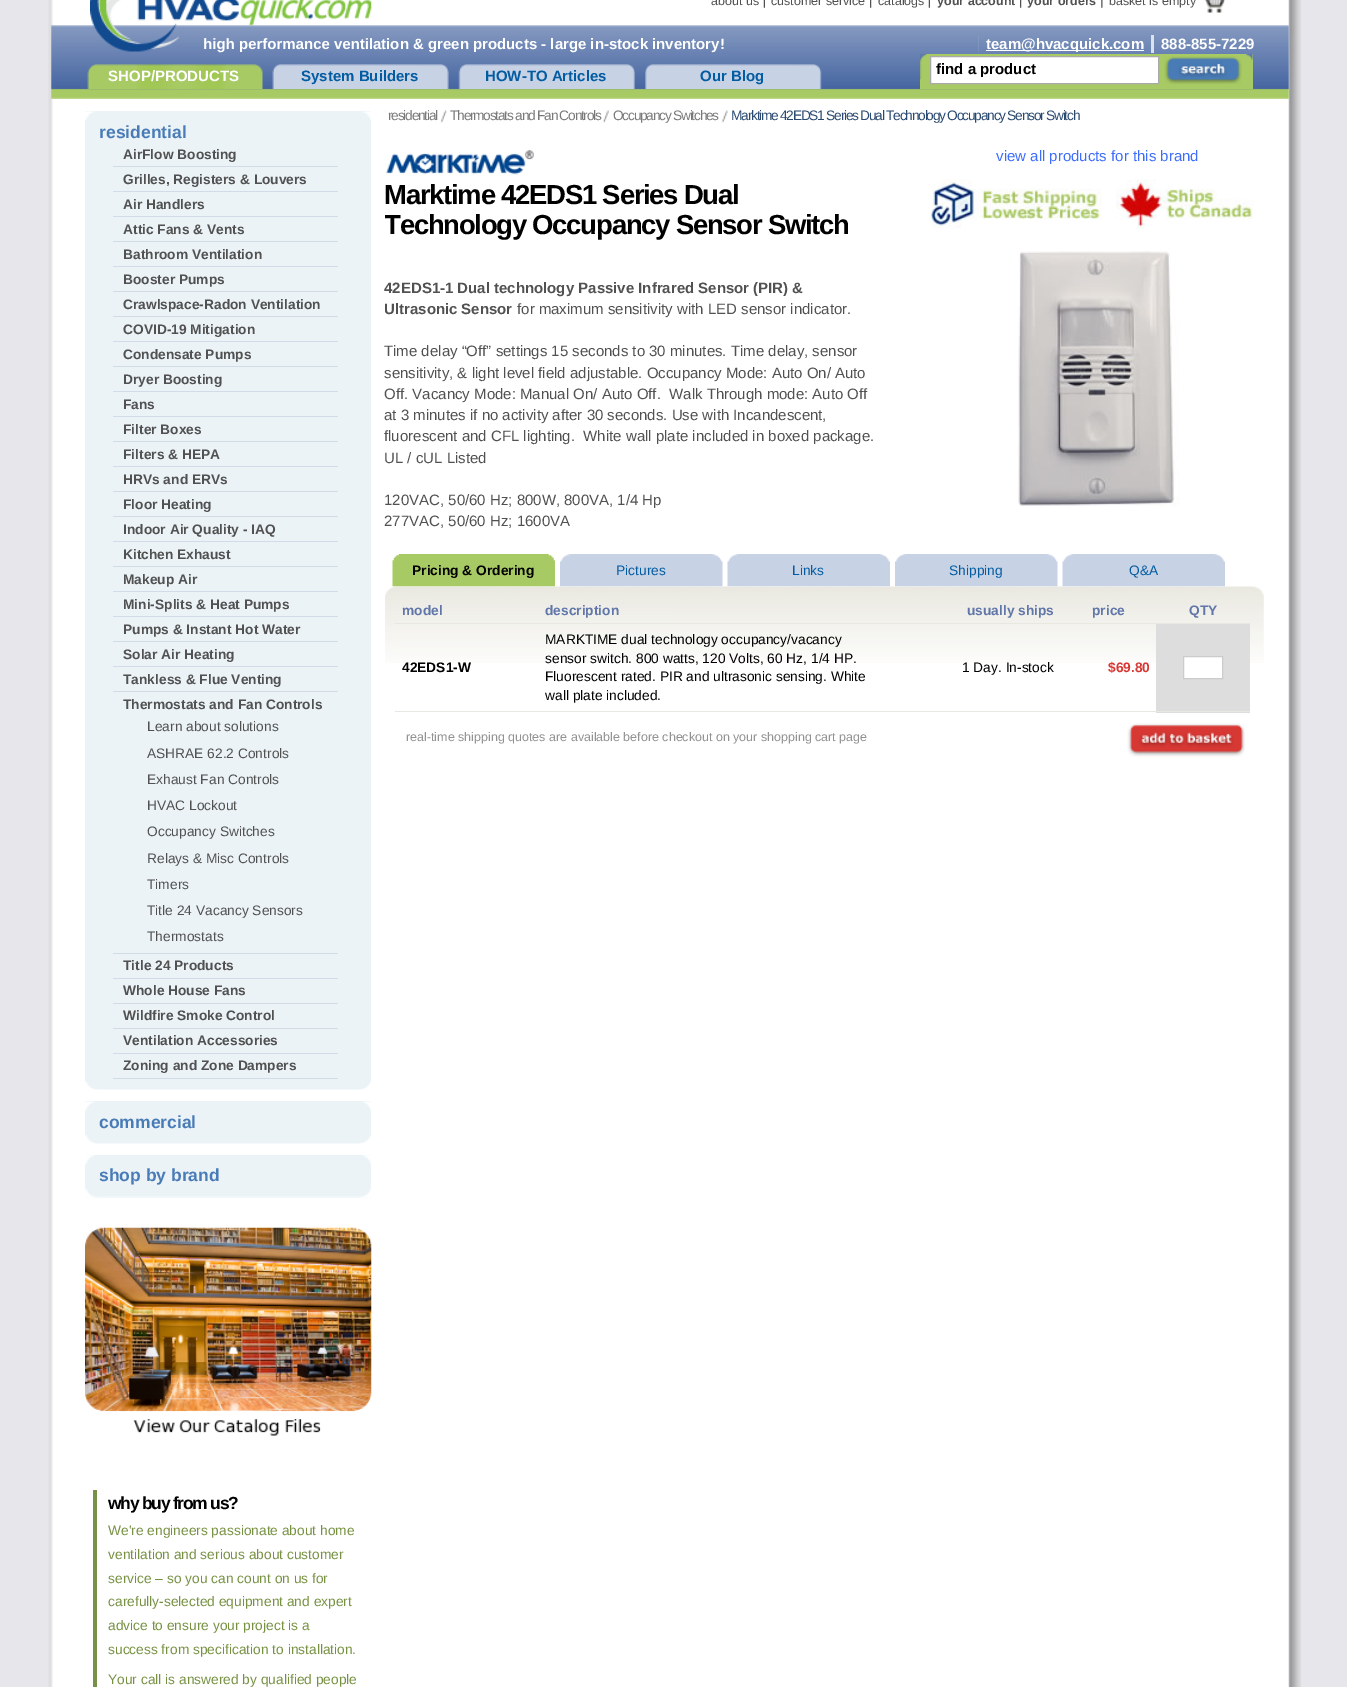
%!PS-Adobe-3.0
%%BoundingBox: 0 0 1347 1687
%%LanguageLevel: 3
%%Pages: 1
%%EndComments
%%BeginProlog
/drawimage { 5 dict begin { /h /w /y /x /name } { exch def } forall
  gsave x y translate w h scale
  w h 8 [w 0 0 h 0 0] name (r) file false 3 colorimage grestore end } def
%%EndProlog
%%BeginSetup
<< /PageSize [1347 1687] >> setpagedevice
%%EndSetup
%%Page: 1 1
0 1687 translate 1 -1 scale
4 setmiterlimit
0.906 0.906 0.922 setrgbcolor
0 0 1347 1687 rectfill
(images/1.raw) 48 0 1253 1687 drawimage
(images/3.raw) 763 0 2 8 drawimage
(images/4.raw) 870 0 2 8 drawimage
(images/3.raw) 928 0 2 8 drawimage
(images/4.raw) 1020 0 2 8 drawimage
(images/5.raw) 1101 0 2 8 drawimage
(images/6.raw) 1204 0 21 13 drawimage
(images/7.raw) 51 25 1238 74 drawimage
(images/8.raw) 978 36 1 17 drawimage
1 setgray
986 50 158 1 rectfill
0.859 0.882 0.929 setrgbcolor
1151 35 3 18 rectfill
(images/9.raw) 86 64 177 25 drawimage
(images/10.raw) 272 64 177 25 drawimage
(images/11.raw) 458 64 177 25 drawimage
(images/12.raw) 645 64 177 25 drawimage
0.659 0.792 0.392 setrgbcolor
920 54 333 35 rectfill
(images/13.raw) 920 54 7 26 drawimage
(images/14.raw) 1246 54 7 7 drawimage
1 setgray
newpath 930.5 56.5 moveto 1158.5 56.5 lineto 1158.5 83.5 lineto 930.5 83.5 lineto closepath gsave fill grestore
0.663 setgray
stroke
(images/15.raw) 1164 56 78 28 drawimage
0.922 0.953 0.969 setrgbcolor
85 111 286 971 rectfill
(images/16.raw) 85 111 286 10 drawimage
(images/17.raw) 85 1081 286 9 drawimage
0.82 0.863 0.91 setrgbcolor
113 166 225 1 rectfill
113 191 225 1 rectfill
113 216 225 1 rectfill
113 241 225 1 rectfill
113 266 225 1 rectfill
113 291 225 1 rectfill
113 316 225 1 rectfill
113 341 225 1 rectfill
113 366 225 1 rectfill
113 391 225 1 rectfill
113 416 225 1 rectfill
113 441 225 1 rectfill
113 466 225 1 rectfill
113 491 225 1 rectfill
113 516 225 1 rectfill
113 541 225 1 rectfill
113 566 225 1 rectfill
113 591 225 1 rectfill
113 616 225 1 rectfill
113 641 225 1 rectfill
113 666 225 1 rectfill
113 691 225 1 rectfill
113 953 225 1 rectfill
113 978 225 1 rectfill
113 1003 225 1 rectfill
113 1028 225 1 rectfill
113 1053 225 1 rectfill
113 1078 225 1 rectfill
0.922 0.953 0.969 setrgbcolor
85 1101 286 35 rectfill
(images/16.raw) 85 1101 286 10 drawimage
(images/18.raw) 85 1135 286 9 drawimage
85 1155 286 43 rectfill
(images/19.raw) 85 1155 286 9 drawimage
(images/20.raw) 85 1189 286 9 drawimage
(images/21.raw) 85 1227 287 209 drawimage
0.467 0.569 0.278 setrgbcolor
93 1490 4 197 rectfill
(images/22.raw) 385 110 1 3 drawimage
(images/23.raw) 440 110 7 13 drawimage
(images/24.raw) 603 110 6 13 drawimage
(images/25.raw) 721 110 7 13 drawimage
(images/26.raw) 386 150 149 25 drawimage
(images/27.raw) 931 179 171 50 drawimage
(images/28.raw) 1116 179 138 50 drawimage
(images/29.raw) 1018 251 162 256 drawimage
(images/35.raw) 385 586 879 77 drawimage
(images/30.raw) 392 554 163 33 drawimage
(images/31.raw) 560 554 163 33 drawimage
(images/32.raw) 727 554 163 33 drawimage
(images/33.raw) 895 554 163 33 drawimage
(images/34.raw) 1062 554 163 33 drawimage
0.914 0.91 0.878 setrgbcolor
395 623 855 1 rectfill
0.867 setgray
1156 624 94 89 rectfill
0.914 0.91 0.878 setrgbcolor
395 711 855 1 rectfill
1 setgray
newpath 1183.5 656.5 moveto 1222.5 656.5 lineto 1222.5 678.5 lineto 1183.5 678.5 lineto closepath gsave fill grestore
0.8 setgray
stroke
(images/36.raw) 1127 723 118 34 drawimage
/LiberationSans-Regular [12.5 0 0 -12.5 0 0] selectfont
0.318 setgray
711 5 moveto (about us) show
771 5 moveto (customer service) show
878 5 moveto (catalogs) show
/LiberationSans-Bold [12.5 0 0 -12.5 0 0] selectfont
937 5 moveto (your account) show
1027 5 moveto (your orders) show
/LiberationSans-Regular [12.5 0 0 -12.5 0 0] selectfont
1109 5 moveto (basket is empty) show
/LiberationSans-Bold [15 0 0 -15 0 0] selectfont
1 setgray
203 49 moveto (high performance ventilation & green products - large in-stock inventory!) show
(images/2.raw) 90 0 282 52 drawimage
986 49 moveto (team@hvacquick.com) show
1161 49 moveto (888-855-7229) show
108 81 moveto (SHOP/PRODUCTS) show
0.008 0.361 0.635 setrgbcolor
301 81 moveto (System Builders) show
485 81 moveto (HOW-TO Articles) show
700 81 moveto (Our Blog) show
0 setgray
936 74 moveto (find a product) show
/LiberationSans-Bold [17.5 0 0 -17.5 0 0] selectfont
0.286 0.486 0.714 setrgbcolor
99 138 moveto (residential) show
/LiberationSans-Bold [13.75 0 0 -13.75 0 0] selectfont
0.318 setgray
123 159 moveto (AirFlow Boosting) show
123 184 moveto (Grilles, Registers & Louvers) show
123 209 moveto (Air Handlers) show
123 234 moveto (Attic Fans & Vents) show
123 259 moveto (Bathroom Ventilation) show
123 284 moveto (Booster Pumps) show
123 309 moveto (Crawlspace-Radon Ventilation) show
123 334 moveto (COVID-19 Mitigation) show
123 359 moveto (Condensate Pumps) show
123 384 moveto (Dryer Boosting) show
123 409 moveto (Fans) show
123 434 moveto (Filter Boxes) show
123 459 moveto (Filters & HEPA) show
123 484 moveto (HRVs and ERVs) show
123 509 moveto (Floor Heating) show
123 534 moveto (Indoor Air Quality - IAQ) show
123 559 moveto (Kitchen Exhaust) show
123 584 moveto (Makeup Air) show
123 609 moveto (Mini-Splits & Heat Pumps) show
123 634 moveto (Pumps & Instant Hot Water) show
123 659 moveto (Solar Air Heating) show
123 684 moveto (Tankless & Flue Venting) show
123 709 moveto (Thermostats and Fan Controls) show
/LiberationSans-Regular [13.75 0 0 -13.75 0 0] selectfont
147 731 moveto (Learn about solutions) show
147 758 moveto (ASHRAE 62.2 Controls) show
147 784 moveto (Exhaust Fan Controls) show
147 810 moveto (HVAC Lockout) show
147 836 moveto (Occupancy Switches) show
147 863 moveto (Relays & Misc Controls) show
147 889 moveto (Timers) show
147 915 moveto (Title 24 Vacancy Sensors) show
147 941 moveto (Thermostats) show
/LiberationSans-Bold [13.75 0 0 -13.75 0 0] selectfont
123 970 moveto (Title 24 Products) show
123 995 moveto (Whole House Fans) show
123 1020 moveto (Wildfire Smoke Control) show
123 1045 moveto (Ventilation Accessories) show
123 1070 moveto (Zoning and Zone Dampers) show
/LiberationSans-Bold [17.5 0 0 -17.5 0 0] selectfont
0.286 0.486 0.714 setrgbcolor
99 1128 moveto (commercial) show
99 1181 moveto (shop by brand) show
0 setgray
108 1509 moveto -1.25 0 (why buy from us?) ashow
/LiberationSans-Regular [13.75 0 0 -13.75 0 0] selectfont
0.467 0.569 0.259 setrgbcolor
108 1535 moveto (We're engineers passionate about home) show
108 1559 moveto (ventilation and serious about customer) show
108 1583 moveto (service – so you can count on us for) show
108 1606 moveto (carefully-selected equipment and expert) show
108 1630 moveto (advice to ensure your project is a) show
108 1654 moveto (success from specification to installation.) show
108 1684 moveto (Your call is answered by qualified people) show
0.475 setgray
388 120 moveto -1.25 0 (residential) ashow
450 120 moveto -1.25 0 (Thermostats and Fan Controls) ashow
613 120 moveto -1.25 0 (Occupancy Switches) ashow
0.161 0.286 0.439 setrgbcolor
731 120 moveto -1.25 0 (Marktime 42EDS1 Series Dual Technology Occupancy Sensor Switch) ashow
/LiberationSans-Regular [15 0 0 -15 0 0] selectfont
0.243 0.427 0.988 setrgbcolor
996 161 moveto (view all products for this brand) show
/LiberationSans-Bold [27.5 0 0 -27.5 0 0] selectfont
0 setgray
384 204 moveto -1.25 0 (Marktime 42EDS1 Series Dual) ashow
gsave
385 148 879 406 rectclip
384 234 moveto -1.25 0 (Technology Occupancy Sensor Switch) ashow
grestore
/LiberationSans-Bold [15 0 0 -15 0 0] selectfont
0.318 setgray
384 293 moveto (42EDS1-1 Dual technology Passive Infrared Sensor \(PIR\) &) show
384 314 moveto (Ultrasonic Sensor) show
/LiberationSans-Regular [15 0 0 -15 0 0] selectfont
517 314 moveto (for maximum sensitivity with LED sensor indicator.) show
384 356 moveto (Time delay “Off” settings 15 seconds to 30 minutes. Time delay, sensor) show
384 378 moveto (sensitivity, & light level field adjustable. Occupancy Mode: Auto On/ Auto) show
384 399 moveto (Off. Vacancy Mode: Manual On/ Auto Off.  Walk Through mode: Auto Off) show
384 420 moveto (at 3 minutes if no activity after 30 seconds. Use with Incandescent,) show
384 441 moveto (fluorescent and CFL lighting.  White wall plate included in boxed package.) show
384 463 moveto (UL / cUL Listed) show
384 505 moveto (120VAC, 50/60 Hz; 800W, 800VA, 1/4 Hp) show
384 526 moveto (277VAC, 50/60 Hz; 1600VA) show
/LiberationSans-Bold [13.75 0 0 -13.75 0 0] selectfont
0 setgray
412 575 moveto (Pricing & Ordering) show
/LiberationSans-Regular [13.75 0 0 -13.75 0 0] selectfont
0.008 0.361 0.635 setrgbcolor
616 575 moveto (Pictures) show
792 575 moveto (Links) show
949 575 moveto (Shipping) show
1129 575 moveto (Q&A) show
/LiberationSans-Bold [13.75 0 0 -13.75 0 0] selectfont
0.38 0.467 0.667 setrgbcolor
402 615 moveto (model) show
545 615 moveto (description) show
967 615 moveto (usually ships) show
1092 615 moveto (price) show
1189 615 moveto (QTY) show
0 setgray
402 672 moveto (42EDS1-W) show
/LiberationSans-Regular [13.75 0 0 -13.75 0 0] selectfont
545 644 moveto (MARKTIME dual technology occupancy/vacancy) show
545 663 moveto (sensor switch. 800 watts, 120 Volts, 60 Hz, 1/4 HP.) show
545 681 moveto (Fluorescent rated. PIR and ultrasonic sensing. White) show
545 700 moveto (wall plate included.) show
962 672 moveto (1 Day. In-stock) show
/LiberationSans-Bold [13.75 0 0 -13.75 0 0] selectfont
0.847 0.22 0.204 setrgbcolor
1108 672 moveto ($69.80) show
/LiberationSans-Regular [12.5 0 0 -12.5 0 0] selectfont
0.573 setgray
406 741 moveto (real-time shipping quotes are available before checkout on your shopping cart page) show
showpage
%%EOF
